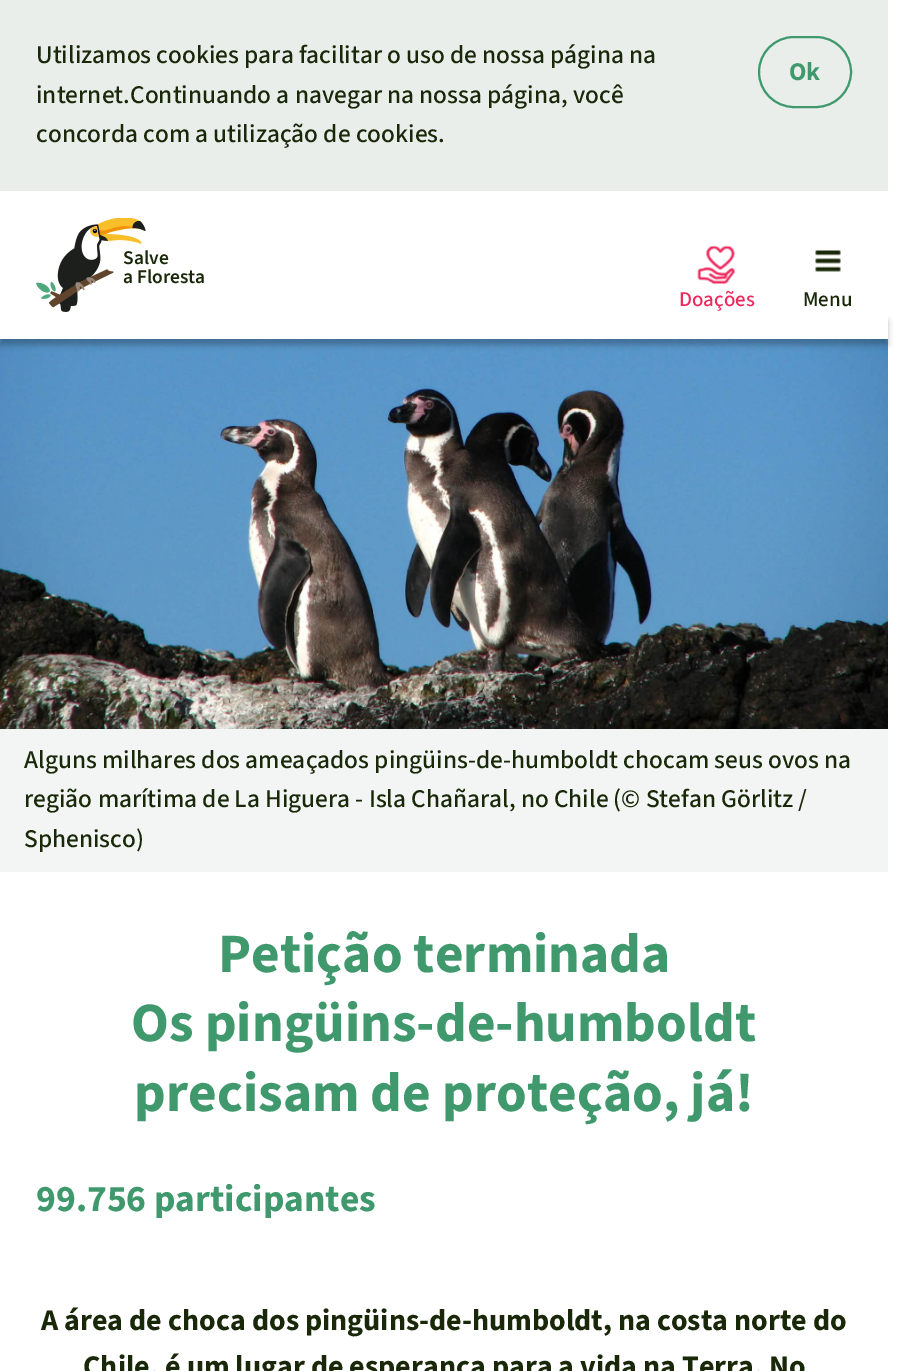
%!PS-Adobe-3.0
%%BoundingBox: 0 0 910 1371
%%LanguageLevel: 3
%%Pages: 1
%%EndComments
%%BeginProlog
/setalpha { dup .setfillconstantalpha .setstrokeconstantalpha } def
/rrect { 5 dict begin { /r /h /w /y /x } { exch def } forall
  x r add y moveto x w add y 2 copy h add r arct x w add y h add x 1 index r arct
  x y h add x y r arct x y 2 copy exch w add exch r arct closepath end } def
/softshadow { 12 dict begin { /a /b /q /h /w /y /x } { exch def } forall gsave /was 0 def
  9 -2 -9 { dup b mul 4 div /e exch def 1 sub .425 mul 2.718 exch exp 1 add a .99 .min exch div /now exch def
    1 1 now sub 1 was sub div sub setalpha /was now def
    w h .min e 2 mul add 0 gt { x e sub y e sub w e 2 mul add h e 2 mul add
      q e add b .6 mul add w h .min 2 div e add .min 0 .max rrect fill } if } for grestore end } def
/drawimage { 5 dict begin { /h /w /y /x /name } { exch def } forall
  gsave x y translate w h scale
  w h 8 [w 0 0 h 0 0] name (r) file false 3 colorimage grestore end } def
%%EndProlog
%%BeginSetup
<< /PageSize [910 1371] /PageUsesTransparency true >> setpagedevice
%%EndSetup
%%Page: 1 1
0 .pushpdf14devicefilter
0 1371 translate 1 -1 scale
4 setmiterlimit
1 setgray
0 0 910 1371 rectfill
0.914 0.933 0.922 setrgbcolor
0 0 888 191 rectfill
0.247 0.6 0.427 setrgbcolor
2 setlinewidth
759 37 92 70 35 rrect stroke
(images/1.raw) 36 218 110 94 drawimage
(images/2.raw) 697 245 38 39 drawimage
(images/3.raw) 815 250 26 22 drawimage
(images/4.raw) 0 339 888 390 drawimage
gsave
newpath 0 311 moveto 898 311 lineto 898 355 lineto 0 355 lineto closepath 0 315 moveto 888 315 lineto 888 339 lineto 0 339 lineto closepath eoclip newpath
0 setgray
0 321 888 24 0 3 0.25 softshadow
grestore
0.949 0.961 0.953 setrgbcolor
0 729 888 143 rectfill
/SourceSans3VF-Medium [25.5 0 0 -25.5 0 0] selectfont
0.102 0.157 0.039 setrgbcolor
36 63 moveto (Utilizamos cookies para facilitar o uso de nossa página na) show
36 103 moveto (internet.Continuando a navegar na nossa página, você) show
36 142 moveto (concorda com a utilização de cookies.) show
/SourceSans3VF-Bold [25.5 0 0 -25.5 0 0] selectfont
0.247 0.6 0.427 setrgbcolor
789 80 moveto (Ok) show
/SourceSans3VF-SemiBold [19.5 0 0 -19.5 0 0] selectfont
0.102 0.157 0.039 setrgbcolor
123 264 moveto (Salve) show
123 283 moveto (a Floresta) show
/SourceSans3VF-Medium [21 0 0 -21 0 0] selectfont
0.933 0.161 0.369 setrgbcolor
679 306 moveto (Doações) show
0.102 0.157 0.039 setrgbcolor
803 306 moveto (Menu) show
/SourceSans3VF-Medium [25.5 0 0 -25.5 0 0] selectfont
24 768 moveto (Alguns milhares dos ameaçados pingüins-de-humboldt chocam seus ovos na) show
24 807 moveto (região marítima de La Higuera - Isla Chañaral, no Chile \(© Stefan Görlitz /) show
24 847 moveto (Sphenisco\)) show
/SourceSans3VF-Bold [55.5 0 0 -55.5 0 0] selectfont
0.247 0.6 0.427 setrgbcolor
218 972 moveto (Petição terminada) show
131 1041 moveto (Os pingüins-de-humboldt) show
134 1111 moveto (precisam de proteção, já!) show
/SourceSans3VF-Bold [37.5 0 0 -37.5 0 0] selectfont
36 1211 moveto (99.756 participantes) show
/SourceSans3VF-Bold [30 0 0 -30 0 0] selectfont
0.102 0.157 0.039 setrgbcolor
41 1330 moveto (A área de choca dos pingüins-de-humboldt, na costa norte do) show
83 1376 moveto (Chile, é um lugar de esperança para a vida na Terra. No) show
.poppdf14devicefilter showpage
%%EOF
